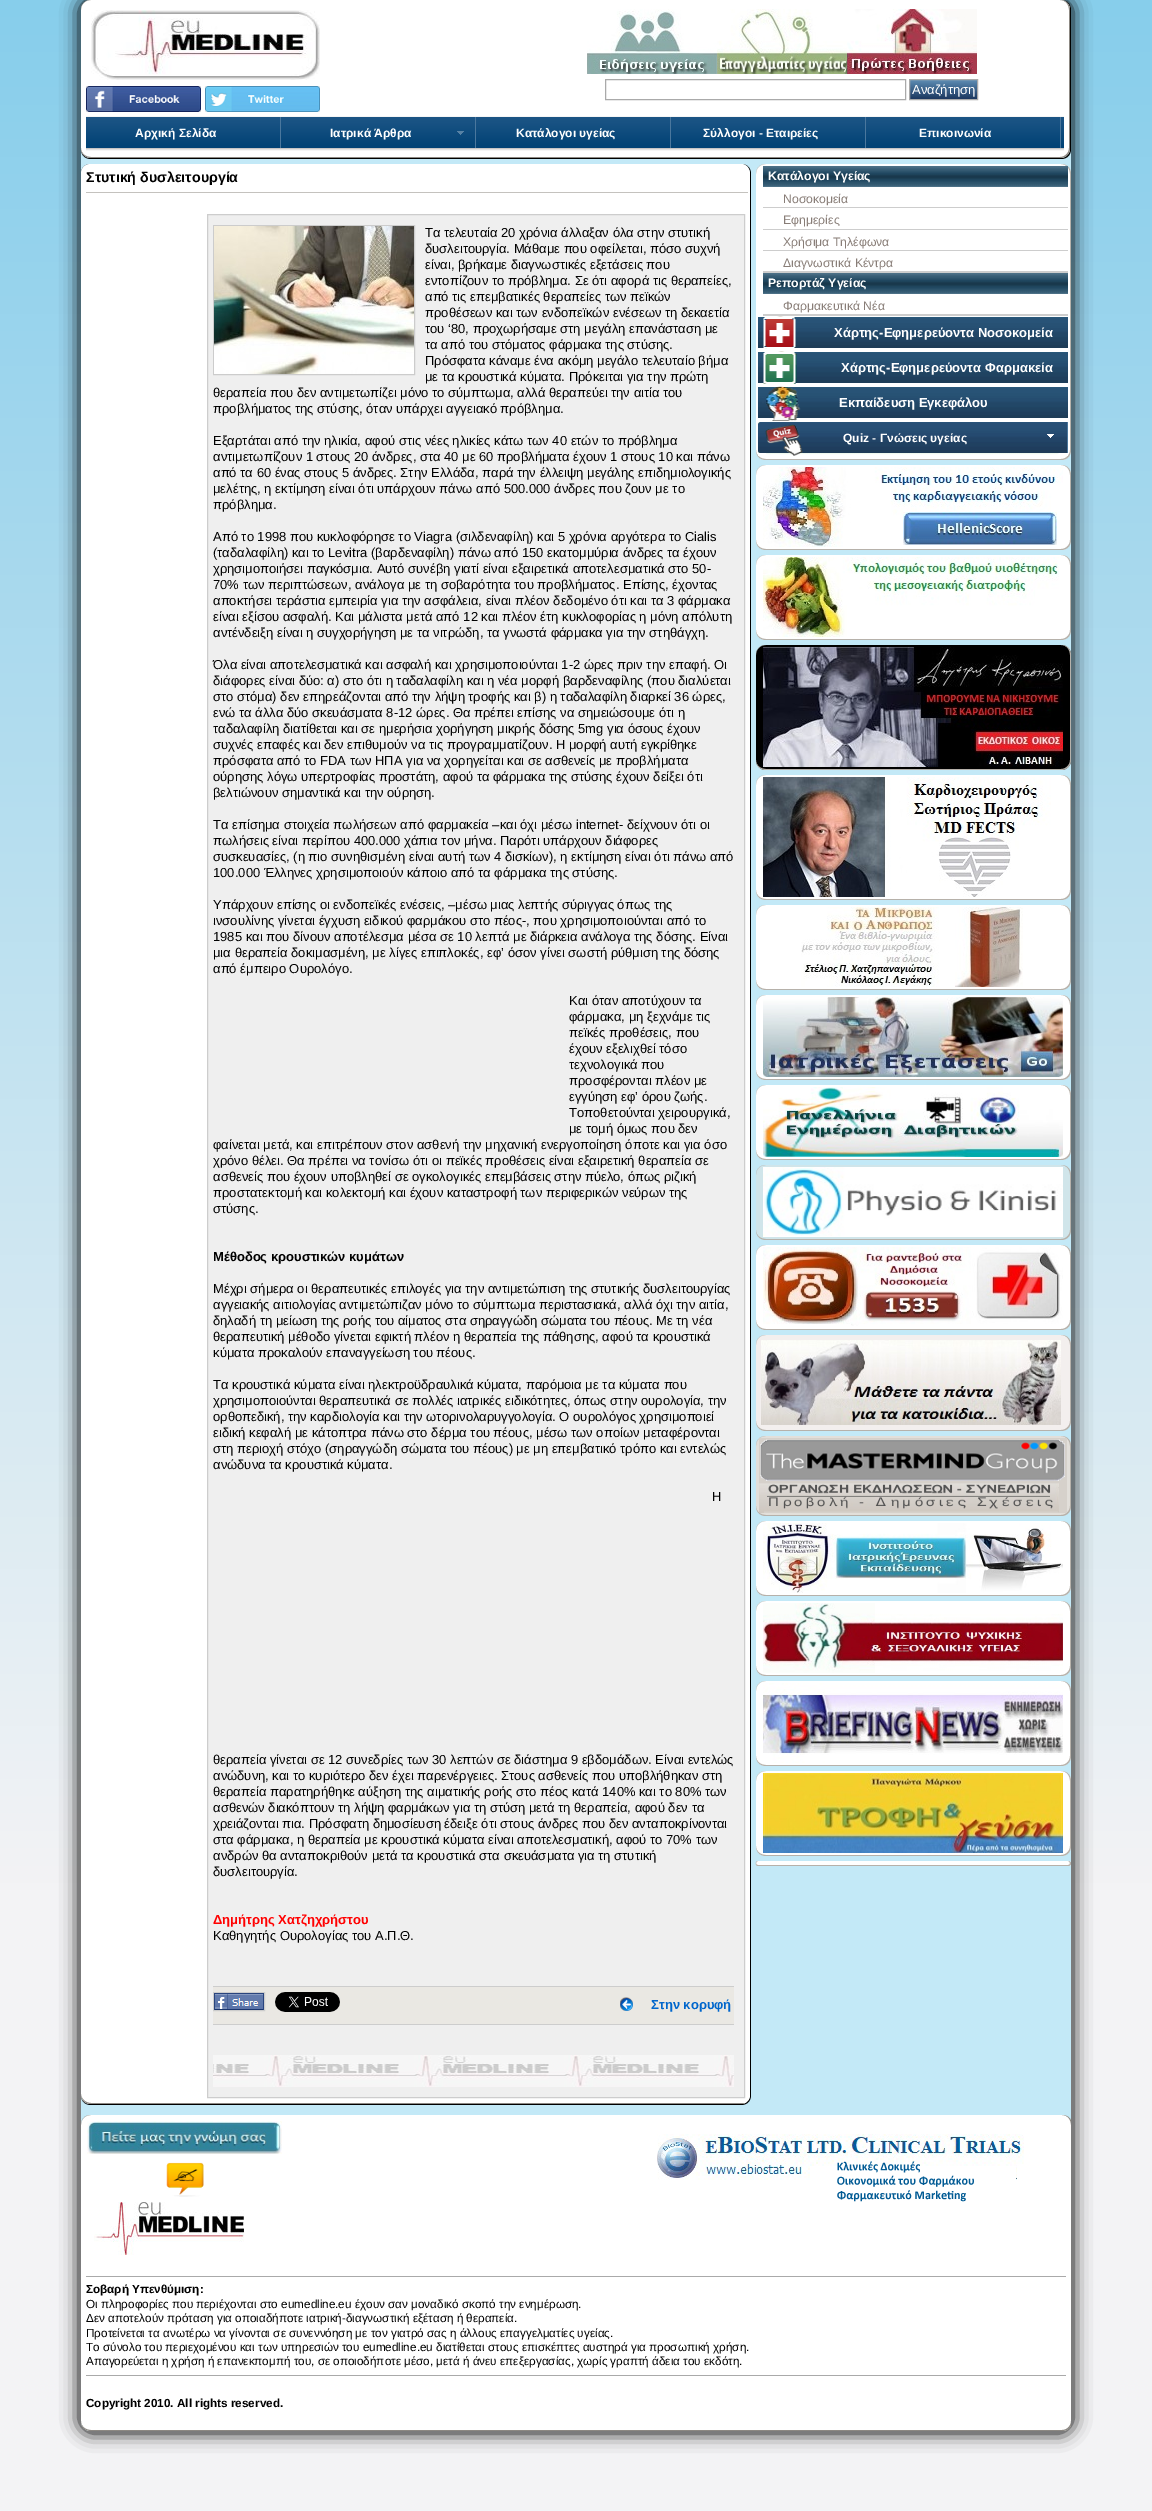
%!PS-Adobe-3.0
%%BoundingBox: 0 0 1152 2511
%%LanguageLevel: 3
%%Pages: 1
%%EndComments
%%BeginProlog
/setalpha { dup .setfillconstantalpha .setstrokeconstantalpha } def
/rrect { 5 dict begin { /r /h /w /y /x } { exch def } forall
  x r add y moveto x w add y 2 copy h add r arct x w add y h add x 1 index r arct
  x y h add x y r arct x y 2 copy exch w add exch r arct closepath end } def
/softshadow { 12 dict begin { /a /b /q /h /w /y /x } { exch def } forall gsave /was 0 def
  9 -2 -9 { dup b mul 4 div /e exch def 1 sub .425 mul 2.718 exch exp 1 add a .99 .min exch div /now exch def
    1 1 now sub 1 was sub div sub setalpha /was now def
    w h .min e 2 mul add 0 gt { x e sub y e sub w e 2 mul add h e 2 mul add
      q e add b .6 mul add w h .min 2 div e add .min 0 .max rrect fill } if } for grestore end } def
/drawimage { 5 dict begin { /h /w /y /x /name } { exch def } forall
  gsave x y translate w h scale
  w h 8 [w 0 0 h 0 0] name (r) file false 3 colorimage grestore end } def
%%EndProlog
%%BeginSetup
<< /PageSize [1152 2511] /PageUsesTransparency true >> setpagedevice
%%EndSetup
%%Page: 1 1
0 .pushpdf14devicefilter
0 2511 translate 1 -1 scale
4 setmiterlimit
1 setgray
0 0 1152 2511 rectfill
gsave newpath 0 0 moveto 1152 0 lineto 1152 2511 lineto 0 2511 lineto closepath clip newpath
<< /ShadingType 2 /ColorSpace /DeviceRGB /Coords [576 2511 576 0] /Extend [true true] /Function << /FunctionType 3 /Domain [0 1] /Functions [<< /FunctionType 2 /Domain [0 1] /C0 [0.953 0.953 0.961] /C1 [0.953 0.953 0.961] /N 1 >> << /FunctionType 2 /Domain [0 1] /C0 [0.953 0.953 0.961] /C1 [0.529 0.808 0.922] /N 1 >>] /Bounds [0.25] /Encode [0 1 0 1] >> >> shfill grestore
0 setgray
79 -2 994 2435 12 9 1 softshadow
0.765 0.914 0.969 setrgbcolor
81 0 990 2431 10 rrect fill
0 setgray
newpath 91 0 moveto 1061 0 lineto 1067 0 1071 4 1071 10 curveto 1071 149 lineto 1071 155 1067 159 1061 159 curveto 91 159 lineto 85 159 81 155 81 149 curveto 81 10 lineto 81 4 85 0 91 0 curveto closepath 91 0 moveto 1061 0 lineto 1066 0 1070 4 1070 10 curveto 1070 149 lineto 1070 154 1066 158 1061 158 curveto 91 158 lineto 85 158 81 154 81 149 curveto 81 10 lineto 81 4 85 0 91 0 curveto closepath eofill
1 setgray
81 0 989 158 10 rrect fill
0.549 0.533 0.51 setrgbcolor
newpath 91 0 moveto 1060 0 lineto 1066 0 1070 4 1070 10 curveto 1070 148 lineto 1070 154 1066 158 1060 158 curveto 91 158 lineto 85 158 81 154 81 148 curveto 81 10 lineto 81 4 85 0 91 0 curveto closepath 91 0 moveto 1060 0 lineto 1065 0 1069 4 1069 10 curveto 1069 148 lineto 1069 153 1065 157 1060 157 curveto 91 157 lineto 85 157 81 153 81 148 curveto 81 10 lineto 81 4 85 0 91 0 curveto closepath eofill
(images/1.raw) 86 86 115 26 drawimage
(images/2.raw) 205 86 115 26 drawimage
(images/3.raw) 91 10 229 70 drawimage
(images/4.raw) 587 9 130 65 drawimage
(images/5.raw) 717 9 130 65 drawimage
(images/6.raw) 847 9 130 65 drawimage
0.667 setgray
605.5 79.5 300 20 rectstroke
(images/7.raw) 910 80 67 19 drawimage
909.5 79.5 68 20 rectstroke
(images/8.raw) 86 116 978 35 drawimage
0.29 0.467 0.616 setrgbcolor
280 117 1 31 rectfill
475 117 1 31 rectfill
(images/9.raw) 457 131 7 4 drawimage
670 117 1 31 rectfill
865 117 1 31 rectfill
1060 117 1 31 rectfill
0 setgray
newpath 91 164 moveto 741 164 lineto 747 164 751 168 751 174 curveto 751 2095 lineto 751 2101 747 2105 741 2105 curveto 91 2105 lineto 85 2105 81 2101 81 2095 curveto 81 174 lineto 81 168 85 164 91 164 curveto closepath 91 164 moveto 741 164 lineto 746 164 750 168 750 174 curveto 750 2095 lineto 750 2100 746 2104 741 2104 curveto 91 2104 lineto 85 2104 81 2100 81 2095 curveto 81 174 lineto 81 168 85 164 91 164 curveto closepath eofill
1 setgray
newpath 91 164 moveto 85 164 81 168 81 174 curveto 81 2094 lineto 81 2100 85 2104 91 2104 curveto 741 2104 lineto 746 2104 750 2100 750 2095 curveto 750 174 lineto 750 168 746 164 741 164 curveto closepath fill
0.549 0.533 0.51 setrgbcolor
newpath 83 2100 moveto 82 2099 81 2097 81 2094 curveto 81 2099 86 2103 91 2103 curveto 745 2103 lineto 744 2104 743 2104 741 2104 curveto 91 2104 lineto 88 2104 85 2103 83 2100 curveto closepath fill
0.769 0.761 0.745 setrgbcolor
86 192 662 1 rectfill
0.937 setgray
newpath 207.5 214.5 moveto 744.5 214.5 lineto 744.5 2097.5 lineto 207.5 2097.5 lineto closepath gsave fill grestore
0.804 setgray
stroke
0.8 setgray
213.5 225.5 201 149 rectstroke
(images/10.raw) 214 226 200 148 drawimage
0.918 0.91 0.89 setrgbcolor
213 1987 521 37 rectfill
0.804 setgray
213 1986 521 1 rectfill
213 2024 521 1 rectfill
0.8 setgray
213.5 1992.5 51 18 rectstroke
(images/11.raw) 214 1993 50 17 drawimage
(images/12.raw) 275 1992 65 20 drawimage
(images/13.raw) 620 1997 13 14 drawimage
(images/14.raw) 213 2055 521 32 drawimage
1 setgray
756 164 315 296 10 rrect fill
0.714 0.694 0.667 setrgbcolor
newpath 766 164 moveto 1061 164 lineto 1067 164 1071 168 1071 174 curveto 1071 450 lineto 1071 456 1067 460 1061 460 curveto 766 460 lineto 760 460 756 456 756 450 curveto 756 174 lineto 756 168 760 164 766 164 curveto closepath 766 164 moveto 1061 164 lineto 1066 164 1070 168 1070 174 curveto 1070 450 lineto 1070 455 1066 459 1061 459 curveto 766 459 lineto 760 459 756 455 756 450 curveto 756 174 lineto 756 168 760 164 766 164 curveto closepath eofill
0.804 setgray
763 271 305 2 rectfill
(images/15.raw) 763 166 305 21 drawimage
763 207 305 1 rectfill
763 229 305 1 rectfill
763 250 305 1 rectfill
763 314 305 2 rectfill
(images/15.raw) 763 273 305 21 drawimage
(images/16.raw) 758 316 310 33 drawimage
(images/17.raw) 758 351 310 33 drawimage
(images/18.raw) 758 386 310 35 drawimage
(images/19.raw) 758 422 310 34 drawimage
0.29 0.467 0.616 setrgbcolor
1067 422 1 31 rectfill
1 setgray
756 465 315 85 10 rrect fill
0.714 0.694 0.667 setrgbcolor
newpath 766 465 moveto 1061 465 lineto 1067 465 1071 469 1071 475 curveto 1071 540 lineto 1071 546 1067 550 1061 550 curveto 766 550 lineto 760 550 756 546 756 540 curveto 756 475 lineto 756 469 760 465 766 465 curveto closepath 766 465 moveto 1061 465 lineto 1066 465 1070 469 1070 475 curveto 1070 540 lineto 1070 545 1066 549 1061 549 curveto 766 549 lineto 760 549 756 545 756 540 curveto 756 475 lineto 756 469 760 465 766 465 curveto closepath eofill
(images/20.raw) 763 467 300 80 drawimage
(images/21.raw) 903 512 154 33 drawimage
1 setgray
756 555 315 85 10 rrect fill
0.714 0.694 0.667 setrgbcolor
newpath 766 555 moveto 1061 555 lineto 1067 555 1071 559 1071 565 curveto 1071 630 lineto 1071 636 1067 640 1061 640 curveto 766 640 lineto 760 640 756 636 756 630 curveto 756 565 lineto 756 559 760 555 766 555 curveto closepath 766 555 moveto 1061 555 lineto 1066 555 1070 559 1070 565 curveto 1070 630 lineto 1070 635 1066 639 1061 639 curveto 766 639 lineto 760 639 756 635 756 630 curveto 756 565 lineto 756 559 760 555 766 555 curveto closepath eofill
(images/22.raw) 763 557 296 80 drawimage
0 setgray
756 645 315 125 10 rrect fill
0.714 0.694 0.667 setrgbcolor
newpath 766 645 moveto 1061 645 lineto 1067 645 1071 649 1071 655 curveto 1071 760 lineto 1071 766 1067 770 1061 770 curveto 766 770 lineto 760 770 756 766 756 760 curveto 756 655 lineto 756 649 760 645 766 645 curveto closepath 766 645 moveto 1061 645 lineto 1066 645 1070 649 1070 655 curveto 1070 760 lineto 1070 765 1066 769 1061 769 curveto 766 769 lineto 760 769 756 765 756 760 curveto 756 655 lineto 756 649 760 645 766 645 curveto closepath eofill
(images/23.raw) 763 647 300 120 drawimage
1 setgray
756 775 315 125 10 rrect fill
0.714 0.694 0.667 setrgbcolor
newpath 766 775 moveto 1061 775 lineto 1067 775 1071 779 1071 785 curveto 1071 890 lineto 1071 896 1067 900 1061 900 curveto 766 900 lineto 760 900 756 896 756 890 curveto 756 785 lineto 756 779 760 775 766 775 curveto closepath 766 775 moveto 1061 775 lineto 1066 775 1070 779 1070 785 curveto 1070 890 lineto 1070 895 1066 899 1061 899 curveto 766 899 lineto 760 899 756 895 756 890 curveto 756 785 lineto 756 779 760 775 766 775 curveto closepath eofill
(images/24.raw) 763 777 288 120 drawimage
1 setgray
756 905 315 85 10 rrect fill
0.714 0.694 0.667 setrgbcolor
newpath 766 905 moveto 1061 905 lineto 1067 905 1071 909 1071 915 curveto 1071 980 lineto 1071 986 1067 990 1061 990 curveto 766 990 lineto 760 990 756 986 756 980 curveto 756 915 lineto 756 909 760 905 766 905 curveto closepath 766 905 moveto 1061 905 lineto 1066 905 1070 909 1070 915 curveto 1070 980 lineto 1070 985 1066 989 1061 989 curveto 766 989 lineto 760 989 756 985 756 980 curveto 756 915 lineto 756 909 760 905 766 905 curveto closepath eofill
(images/25.raw) 801 907 222 80 drawimage
1 setgray
756 995 315 85 10 rrect fill
0.714 0.694 0.667 setrgbcolor
newpath 766 995 moveto 1061 995 lineto 1067 995 1071 999 1071 1005 curveto 1071 1070 lineto 1071 1076 1067 1080 1061 1080 curveto 766 1080 lineto 760 1080 756 1076 756 1070 curveto 756 1005 lineto 756 999 760 995 766 995 curveto closepath 766 995 moveto 1061 995 lineto 1066 995 1070 999 1070 1005 curveto 1070 1070 lineto 1070 1075 1066 1079 1061 1079 curveto 766 1079 lineto 760 1079 756 1075 756 1070 curveto 756 1005 lineto 756 999 760 995 766 995 curveto closepath eofill
(images/26.raw) 763 997 300 80 drawimage
1 setgray
756 1085 315 75 10 rrect fill
0.714 0.694 0.667 setrgbcolor
newpath 766 1085 moveto 1061 1085 lineto 1067 1085 1071 1089 1071 1095 curveto 1071 1150 lineto 1071 1156 1067 1160 1061 1160 curveto 766 1160 lineto 760 1160 756 1156 756 1150 curveto 756 1095 lineto 756 1089 760 1085 766 1085 curveto closepath 766 1085 moveto 1061 1085 lineto 1066 1085 1070 1089 1070 1095 curveto 1070 1150 lineto 1070 1155 1066 1159 1061 1159 curveto 766 1159 lineto 760 1159 756 1155 756 1150 curveto 756 1095 lineto 756 1089 760 1085 766 1085 curveto closepath eofill
(images/27.raw) 763 1087 300 70 drawimage
0.816 0.898 0.918 setrgbcolor
756 1165 315 75 10 rrect fill
0.714 0.694 0.667 setrgbcolor
newpath 766 1165 moveto 1061 1165 lineto 1067 1165 1071 1169 1071 1175 curveto 1071 1230 lineto 1071 1236 1067 1240 1061 1240 curveto 766 1240 lineto 760 1240 756 1236 756 1230 curveto 756 1175 lineto 756 1169 760 1165 766 1165 curveto closepath 766 1165 moveto 1061 1165 lineto 1066 1165 1070 1169 1070 1175 curveto 1070 1230 lineto 1070 1235 1066 1239 1061 1239 curveto 766 1239 lineto 760 1239 756 1235 756 1230 curveto 756 1175 lineto 756 1169 760 1165 766 1165 curveto closepath eofill
(images/28.raw) 763 1167 300 70 drawimage
1 setgray
756 1245 315 85 10 rrect fill
0.714 0.694 0.667 setrgbcolor
newpath 766 1245 moveto 1061 1245 lineto 1067 1245 1071 1249 1071 1255 curveto 1071 1320 lineto 1071 1326 1067 1330 1061 1330 curveto 766 1330 lineto 760 1330 756 1326 756 1320 curveto 756 1255 lineto 756 1249 760 1245 766 1245 curveto closepath 766 1245 moveto 1061 1245 lineto 1066 1245 1070 1249 1070 1255 curveto 1070 1320 lineto 1070 1325 1066 1329 1061 1329 curveto 766 1329 lineto 760 1329 756 1325 756 1320 curveto 756 1255 lineto 756 1249 760 1245 766 1245 curveto closepath eofill
(images/29.raw) 763 1247 300 79 drawimage
0.953 0.937 0.933 setrgbcolor
756 1335 315 96 10 rrect fill
0.714 0.694 0.667 setrgbcolor
newpath 766 1335 moveto 1061 1335 lineto 1067 1335 1071 1339 1071 1345 curveto 1071 1421 lineto 1071 1427 1067 1431 1061 1431 curveto 766 1431 lineto 760 1431 756 1427 756 1421 curveto 756 1345 lineto 756 1339 760 1335 766 1335 curveto closepath 766 1335 moveto 1061 1335 lineto 1066 1335 1070 1339 1070 1345 curveto 1070 1421 lineto 1070 1426 1066 1430 1061 1430 curveto 766 1430 lineto 760 1430 756 1426 756 1421 curveto 756 1345 lineto 756 1339 760 1335 766 1335 curveto closepath eofill
(images/30.raw) 761 1340 300 85 drawimage
0.886 0.875 0.855 setrgbcolor
756 1436 315 80 10 rrect fill
0.714 0.694 0.667 setrgbcolor
newpath 766 1436 moveto 1061 1436 lineto 1067 1436 1071 1440 1071 1446 curveto 1071 1506 lineto 1071 1512 1067 1516 1061 1516 curveto 766 1516 lineto 760 1516 756 1512 756 1506 curveto 756 1446 lineto 756 1440 760 1436 766 1436 curveto closepath 766 1436 moveto 1061 1436 lineto 1066 1436 1070 1440 1070 1446 curveto 1070 1506 lineto 1070 1511 1066 1515 1061 1515 curveto 766 1515 lineto 760 1515 756 1511 756 1506 curveto 756 1446 lineto 756 1440 760 1436 766 1436 curveto closepath eofill
(images/31.raw) 759 1438 308 75 drawimage
1 setgray
756 1521 315 75 10 rrect fill
0.714 0.694 0.667 setrgbcolor
newpath 766 1521 moveto 1061 1521 lineto 1067 1521 1071 1525 1071 1531 curveto 1071 1586 lineto 1071 1592 1067 1596 1061 1596 curveto 766 1596 lineto 760 1596 756 1592 756 1586 curveto 756 1531 lineto 756 1525 760 1521 766 1521 curveto closepath 766 1521 moveto 1061 1521 lineto 1066 1521 1070 1525 1070 1531 curveto 1070 1586 lineto 1070 1591 1066 1595 1061 1595 curveto 766 1595 lineto 760 1595 756 1591 756 1586 curveto 756 1531 lineto 756 1525 760 1521 766 1521 curveto closepath eofill
(images/32.raw) 763 1523 300 70 drawimage
1 setgray
756 1601 315 75 10 rrect fill
0.714 0.694 0.667 setrgbcolor
newpath 766 1601 moveto 1061 1601 lineto 1067 1601 1071 1605 1071 1611 curveto 1071 1666 lineto 1071 1672 1067 1676 1061 1676 curveto 766 1676 lineto 760 1676 756 1672 756 1666 curveto 756 1611 lineto 756 1605 760 1601 766 1601 curveto closepath 766 1601 moveto 1061 1601 lineto 1066 1601 1070 1605 1070 1611 curveto 1070 1666 lineto 1070 1671 1066 1675 1061 1675 curveto 766 1675 lineto 760 1675 756 1671 756 1666 curveto 756 1611 lineto 756 1605 760 1601 766 1601 curveto closepath eofill
(images/33.raw) 763 1603 300 70 drawimage
1 setgray
756 1681 315 85 10 rrect fill
0.714 0.694 0.667 setrgbcolor
newpath 766 1681 moveto 1061 1681 lineto 1067 1681 1071 1685 1071 1691 curveto 1071 1756 lineto 1071 1762 1067 1766 1061 1766 curveto 766 1766 lineto 760 1766 756 1762 756 1756 curveto 756 1691 lineto 756 1685 760 1681 766 1681 curveto closepath 766 1681 moveto 1061 1681 lineto 1066 1681 1070 1685 1070 1691 curveto 1070 1756 lineto 1070 1761 1066 1765 1061 1765 curveto 766 1765 lineto 760 1765 756 1761 756 1756 curveto 756 1691 lineto 756 1685 760 1681 766 1681 curveto closepath eofill
(images/34.raw) 763 1683 300 80 drawimage
1 setgray
756 1771 315 85 10 rrect fill
0.714 0.694 0.667 setrgbcolor
newpath 766 1771 moveto 1061 1771 lineto 1067 1771 1071 1775 1071 1781 curveto 1071 1846 lineto 1071 1852 1067 1856 1061 1856 curveto 766 1856 lineto 760 1856 756 1852 756 1846 curveto 756 1781 lineto 756 1775 760 1771 766 1771 curveto closepath 766 1771 moveto 1061 1771 lineto 1066 1771 1070 1775 1070 1781 curveto 1070 1846 lineto 1070 1851 1066 1855 1061 1855 curveto 766 1855 lineto 760 1855 756 1851 756 1846 curveto 756 1781 lineto 756 1775 760 1771 766 1771 curveto closepath eofill
(images/35.raw) 763 1773 300 80 drawimage
1 setgray
756 1861 315 5 2.5 rrect fill
0.714 0.694 0.667 setrgbcolor
newpath 758 1861 moveto 1068 1861 lineto 1072 1861 1072 1866 1068 1866 curveto 758 1866 lineto 755 1866 755 1861 758 1861 curveto closepath 758 1861 moveto 1068 1861 lineto 1070 1861 1071 1865 1068 1865 curveto 758 1865 lineto 755 1865 756 1861 758 1861 curveto closepath eofill
gsave
81 2115 990 316 rectclip
1 setgray
81 2115 991 316 10 rrect fill
0.549 0.533 0.51 setrgbcolor
newpath 91 2115 moveto 1062 2115 lineto 1068 2115 1072 2119 1072 2125 curveto 1072 2421 lineto 1072 2427 1068 2431 1062 2431 curveto 91 2431 lineto 85 2431 81 2427 81 2421 curveto 81 2125 lineto 81 2119 85 2115 91 2115 curveto closepath 91 2115 moveto 1062 2115 lineto 1067 2115 1071 2119 1071 2125 curveto 1071 2421 lineto 1071 2426 1067 2430 1062 2430 curveto 91 2430 lineto 85 2430 81 2426 81 2421 curveto 81 2125 lineto 81 2119 85 2115 91 2115 curveto closepath eofill
grestore
(images/36.raw) 87 2121 195 33 drawimage
(images/37.raw) 166 2162 38 35 drawimage
(images/38.raw) 94 2202 150 53 drawimage
(images/39.raw) 657 2134 367 68 drawimage
0.667 setgray
86 2276 980 1 rectfill
86 2375 980 1 rectfill
/LiberationSans-Regular [13 0 0 -13 0 0] selectfont
1 setgray
912 94 moveto (Αναζήτηση) show
/LiberationSans-Bold [12 0 0 -12 0 0] selectfont
135 137 moveto (Αρχική Σελίδα) show
330 137 moveto (Ιατρικά Άρθρα) show
516 137 moveto (Κατάλογοι υγείας) show
703 137 moveto (Σύλλογοι - Εταιρείες) show
919 137 moveto (Επικοινωνία) show
/LiberationSans-Bold [14.25 0 0 -14.25 0 0] selectfont
0 setgray
86 182 moveto (Στυτική δυσλειτουργία) show
/LiberationSans-Regular [13 0 0 -13 0 0] selectfont
425 237 moveto (Τα τελευταία 20 χρόνια άλλαξαν όλα στην στυτική) show
425 253 moveto (δυσλειτουργία. Μάθαμε που οφείλεται, πόσο συχνή) show
425 269 moveto (είναι, βρήκαμε διαγνωστικές εξετάσεις που) show
425 285 moveto (εντοπίζουν το πρόβλημα. Σε ότι αφορά τις θεραπείες,) show
425 301 moveto (από τις επεμβατικές θεραπείες των πεϊκών) show
425 317 moveto (προθέσεων και των ενδοπεϊκών ενέσεων τη δεκαετία) show
425 333 moveto (του ‘80, προχωρήσαμε στη μεγάλη επανάσταση με) show
425 349 moveto (τα από του στόματος φάρμακα της στύσης.) show
425 365 moveto (Πρόσφατα κάναμε ένα ακόμη μεγάλο τελευταίο βήμα) show
425 381 moveto (με τα κρουστικά κύματα. Πρόκειται για την πρώτη) show
213 397 moveto (θεραπεία που δεν αντιμετωπίζει μόνο το σύμπτωμα, αλλά θεραπεύει την αιτία του) show
213 413 moveto (προβλήματος της στύσης, όταν υπάρχει αγγειακό πρόβλημα.) show
213 445 moveto (Εξαρτάται από την ηλικία, αφού στις νέες ηλικίες κάτω των 40 ετών το πρόβλημα) show
213 461 moveto (αντιμετωπίζουν 1 στους 20 άνδρες, στα 40 με 60 προβλήματα έχουν 1 στους 10 και πάνω) show
213 477 moveto (από τα 60 ένας στους 5 άνδρες. Στην Ελλάδα, παρά την έλλειψη μεγάλης επιδημιολογικής) show
213 493 moveto (μελέτης, η εκτίμηση είναι ότι υπάρχουν πάνω από 500.000 άνδρες που ζουν με το) show
213 509 moveto (πρόβλημα.) show
213 541 moveto (Από το 1998 που κυκλοφόρησε το Viagra \(σιλδεναφίλη\) και 5 χρόνια αργότερα το Cialis) show
213 557 moveto (\(ταδαλαφίλη\) και το Levitra \(βαρδεναφίλη\) πάνω από 150 εκατομμύρια άνδρες τα έχουν) show
213 573 moveto (χρησιμοποιήσει παγκόσμια. Αυτό συνέβη γιατί είναι εξαιρετικά αποτελεσματικά στο 50-) show
213 589 moveto (70% των περιπτώσεων, ανάλογα με τη σοβαρότητα του προβλήματος. Επίσης, έχοντας) show
213 605 moveto (αποκτήσει τεράστια εμπειρία για την ασφάλεια, είναι πλέον δεδομένο ότι και τα 3 φάρμακα) show
213 621 moveto (είναι εξίσου ασφαλή. Και μάλιστα μετά από 12 και πλέον έτη κυκλοφορίας η μόνη απόλυτη) show
213 637 moveto (αντένδειξη είναι η συγχορήγηση με τα νιτρώδη, τα γνωστά φάρμακα για την στηθάγχη.) show
213 669 moveto (Όλα είναι αποτελεσματικά και ασφαλή και χρησιμοποιούνται 1-2 ώρες πριν την επαφή. Οι) show
213 685 moveto (διάφορες είναι δύο: α\) στο ότι η ταδαλαφίλη και η νέα μορφή βαρδεναφίλης \(που διαλύεται) show
213 701 moveto (στο στόμα\) δεν επηρεάζονται από την λήψη τροφής και β\) η ταδαλαφίλη διαρκεί 36 ώρες,) show
213 717 moveto (ενώ τα άλλα δύο σκευάσματα 8-12 ώρες. Θα πρέπει επίσης να σημειώσουμε ότι η) show
213 733 moveto (ταδαλαφίλη διατίθεται και σε ημερήσια χορήγηση μικρής δόσης 5mg για όσους έχουν) show
213 749 moveto (συχνές επαφές και δεν επιθυμούν να τις προγραμματίζουν. Η μορφή αυτή εγκρίθηκε) show
213 765 moveto (πρόσφατα από το FDA των ΗΠΑ για να χορηγείται και σε ασθενείς με προβλήματα) show
213 781 moveto (ούρησης λόγω υπερτροφίας προστάτη, αφού τα φάρμακα της στύσης έχουν δείξει ότι) show
213 797 moveto (βελτιώνουν σημαντικά και την ούρηση.) show
213 829 moveto (Τα επίσημα στοιχεία πωλήσεων από φαρμακεία –και όχι μέσω internet- δείχνουν ότι οι) show
213 845 moveto (πωλήσεις είναι περίπου 400.000 χάπια τον μήνα. Παρότι υπάρχουν διάφορες) show
213 861 moveto (συσκευασίες, \(η πιο συνηθισμένη είναι αυτή των 4 δισκίων\), η εκτίμηση είναι ότι πάνω από) show
213 877 moveto (100.000 Έλληνες χρησιμοποιούν κάποιο από τα φάρμακα της στύσης.) show
213 909 moveto (Υπάρχουν επίσης οι ενδοπεϊκές ενέσεις, –μέσω μιας λεπτής σύριγγας όπως της) show
213 925 moveto (ινσουλίνης γίνεται έγχυση ειδικού φαρμάκου στο πέος-, που χρησιμοποιούνται από το) show
213 941 moveto (1985 και που δίνουν αποτέλεσμα μέσα σε 10 λεπτά με διάρκεια ανάλογα της δόσης. Είναι) show
213 957 moveto (μια θεραπεία δοκιμασμένη, με λίγες επιπλοκές, εφ’ όσον γίνει σωστή ρύθμιση της δόσης) show
213 973 moveto (από έμπειρο Ουρολόγο.) show
569 1005 moveto (Και όταν αποτύχουν τα) show
569 1021 moveto (φάρμακα, μη ξεχνάμε τις) show
569 1037 moveto (πεϊκές προθέσεις, που) show
569 1053 moveto (έχουν εξελιχθεί τόσο) show
569 1069 moveto (τεχνολογικά που) show
569 1085 moveto (προσφέρονται πλέον με) show
569 1101 moveto (εγγύηση εφ’ όρου ζωής.) show
569 1117 moveto (Τοποθετούνται χειρουργικά,) show
569 1133 moveto (με τομή όμως που δεν) show
213 1149 moveto (φαίνεται μετά, και επιτρέπουν στον ασθενή την μηχανική ενεργοποίηση όποτε και για όσο) show
213 1165 moveto (χρόνο θέλει. Θα πρέπει να τονίσω ότι οι πεϊκές προθέσεις είναι εξαιρετική θεραπεία σε) show
213 1181 moveto (ασθενείς που έχουν υποβληθεί σε ογκολογικές επεμβάσεις στην πύελο, όπως ριζική) show
213 1197 moveto (προστατεκτομή και κολεκτομή και έχουν καταστροφή των περιφερικών νεύρων της) show
213 1213 moveto (στύσης.) show
/LiberationSans-Bold [13 0 0 -13 0 0] selectfont
213 1261 moveto (Μέθοδος κρουστικών κυμάτων) show
/LiberationSans-Regular [13 0 0 -13 0 0] selectfont
213 1293 moveto (Μέχρι σήμερα οι θεραπευτικές επιλογές για την αντιμετώπιση της στυτικής δυσλειτουργίας) show
213 1309 moveto (αγγειακής αιτιολογίας αντιμετώπιζαν μόνο το σύμπτωμα περιστασιακά, αλλά όχι την αιτία,) show
213 1325 moveto (δηλαδή τη μείωση της ροής του αίματος στα σηραγγώδη σώματα του πέους. Με τη νέα) show
213 1341 moveto (θεραπευτική μέθοδο γίνεται εφικτή πλέον η θεραπεία της πάθησης, αφού τα κρουστικά) show
213 1357 moveto (κύματα προκαλούν επαναγγείωση του πέους.) show
213 1389 moveto (Τα κρουστικά κύματα είναι ηλεκτροϋδραυλικά κύματα, παρόμοια με τα κύματα που) show
213 1405 moveto (χρησιμοποιούνται θεραπευτικά σε πολλές ιατρικές ειδικότητες, όπως στην ουρολογία, την) show
213 1421 moveto (ορθοπεδική, την καρδιολογία και την ωτορινολαρυγγολογία. Ο ουρολόγος χρησιμοποιεί) show
213 1437 moveto (ειδική κεφαλή με κάτοπτρα πάνω στο δέρμα του πέους, μέσω των οποίων μεταφέρονται) show
213 1453 moveto (στη περιοχή στόχο \(σηραγγώδη σώματα του πέους\) με μη επεμβατικό τρόπο και εντελώς) show
213 1469 moveto (ανώδυνα τα κρουστικά κύματα.) show
712 1501 moveto (Η) show
213 1764 moveto (θεραπεία γίνεται σε 12 συνεδρίες των 30 λεπτών σε διάστημα 9 εβδομάδων. Είναι εντελώς) show
213 1780 moveto (ανώδυνη, και το κυριότερο δεν έχει παρενέργειες. Στους ασθενείς που υποβλήθηκαν στη) show
213 1796 moveto (θεραπεία παρατηρήθηκε αύξηση της αιματικής ροής στο πέος κατά 140% και το 80% των) show
213 1812 moveto (ασθενών διακόπτουν τη λήψη φαρμάκων για τη στύση μετά τη θεραπεία, αφού δεν τα) show
213 1828 moveto (χρειάζονται πια. Πρόσφατη δημοσίευση έδειξε ότι στους άνδρες που δεν ανταποκρίνονται) show
213 1844 moveto (στα φάρμακα, η θεραπεία με κρουστικά κύματα είναι αποτελεσματική, αφού το 70% των) show
213 1860 moveto (ανδρών θα ανταποκριθούν μετά τα κρουστικά στα σκευάσματα για τη στυτική) show
213 1876 moveto (δυσλειτουργία.) show
/LiberationSans-Bold [13 0 0 -13 0 0] selectfont
1 0 0 setrgbcolor
213 1924 moveto (Δημήτρης Χατζηχρήστου) show
/LiberationSans-Regular [13 0 0 -13 0 0] selectfont
0 setgray
213 1940 moveto (Καθηγητής Ουρολογίας του Α.Π.Θ.) show
/LiberationSans-Bold [13 0 0 -13 0 0] selectfont
0 0.4 0.8 setrgbcolor
651 2009 moveto (Στην κορυφή) show
/LiberationSans-Bold [12.25 0 0 -12.25 0 0] selectfont
1 setgray
768 180 moveto (Κατάλογοι Υγείας) show
/LiberationSans-Regular [12.25 0 0 -12.25 0 0] selectfont
0.533 0.49 0.467 setrgbcolor
783 203 moveto (Νοσοκομεία) show
783 224 moveto (Εφημερίες) show
783 246 moveto (Χρήσιμα Τηλέφωνα) show
783 267 moveto (Διαγνωστικά Κέντρα) show
/LiberationSans-Bold [12.25 0 0 -12.25 0 0] selectfont
1 setgray
768 287 moveto (Ρεπορτάζ Υγείας) show
/LiberationSans-Regular [12.25 0 0 -12.25 0 0] selectfont
0.533 0.49 0.467 setrgbcolor
783 310 moveto (Φαρμακευτικά Νέα) show
/LiberationSans-Bold [13 0 0 -13 0 0] selectfont
1 setgray
834 337 moveto (Χάρτης-Εφημερεύοντα Νοσοκομεία) show
841 372 moveto (Χάρτης-Εφημερεύοντα Φαρμακεία) show
839 407 moveto (Εκπαίδευση Εγκεφάλου) show
/LiberationSans-Bold [12 0 0 -12 0 0] selectfont
843 442 moveto (Quiz - Γνώσεις υγείας) show
/LiberationSans-Bold [11.7 0 0 -11.7 0 0] selectfont
0 setgray
86 2293 moveto (Σοβαρή Υπενθύμιση:) show
/LiberationSans-Regular [11.7 0 0 -11.7 0 0] selectfont
86 2308 moveto (Οι πληροφορίες που περιέχονται στο eumedline.eu έχουν σαν μοναδικό σκοπό την ενημέρωση.) show
86 2322 moveto (Δεν αποτελούν πρόταση για οποιαδήποτε ιατρική-διαγνωστική εξέταση ή θεραπεία.) show
86 2337 moveto (Προτείνεται τα ανωτέρω να γίνονται σε συνεννόηση με τον γιατρό σας η άλλους επαγγελματίες υγείας.) show
86 2351 moveto (Το σύνολο του περιεχομένου και των υπηρεσιών του eumedline.eu διατίθεται στους επισκέπτες αυστηρά για προσωπική χρήση.) show
86 2365 moveto (Απαγορεύεται η χρήση ή επανεκπομπή του, σε οποιοδήποτε μέσο, μετά ή άνευ επεξεργασίας, χωρίς γραπτή άδεια του εκδότη.) show
/LiberationSans-Bold [11.7 0 0 -11.7 0 0] selectfont
86 2407 moveto (Copyright 2010. All rights reserved.) show
.poppdf14devicefilter showpage
%%EOF
